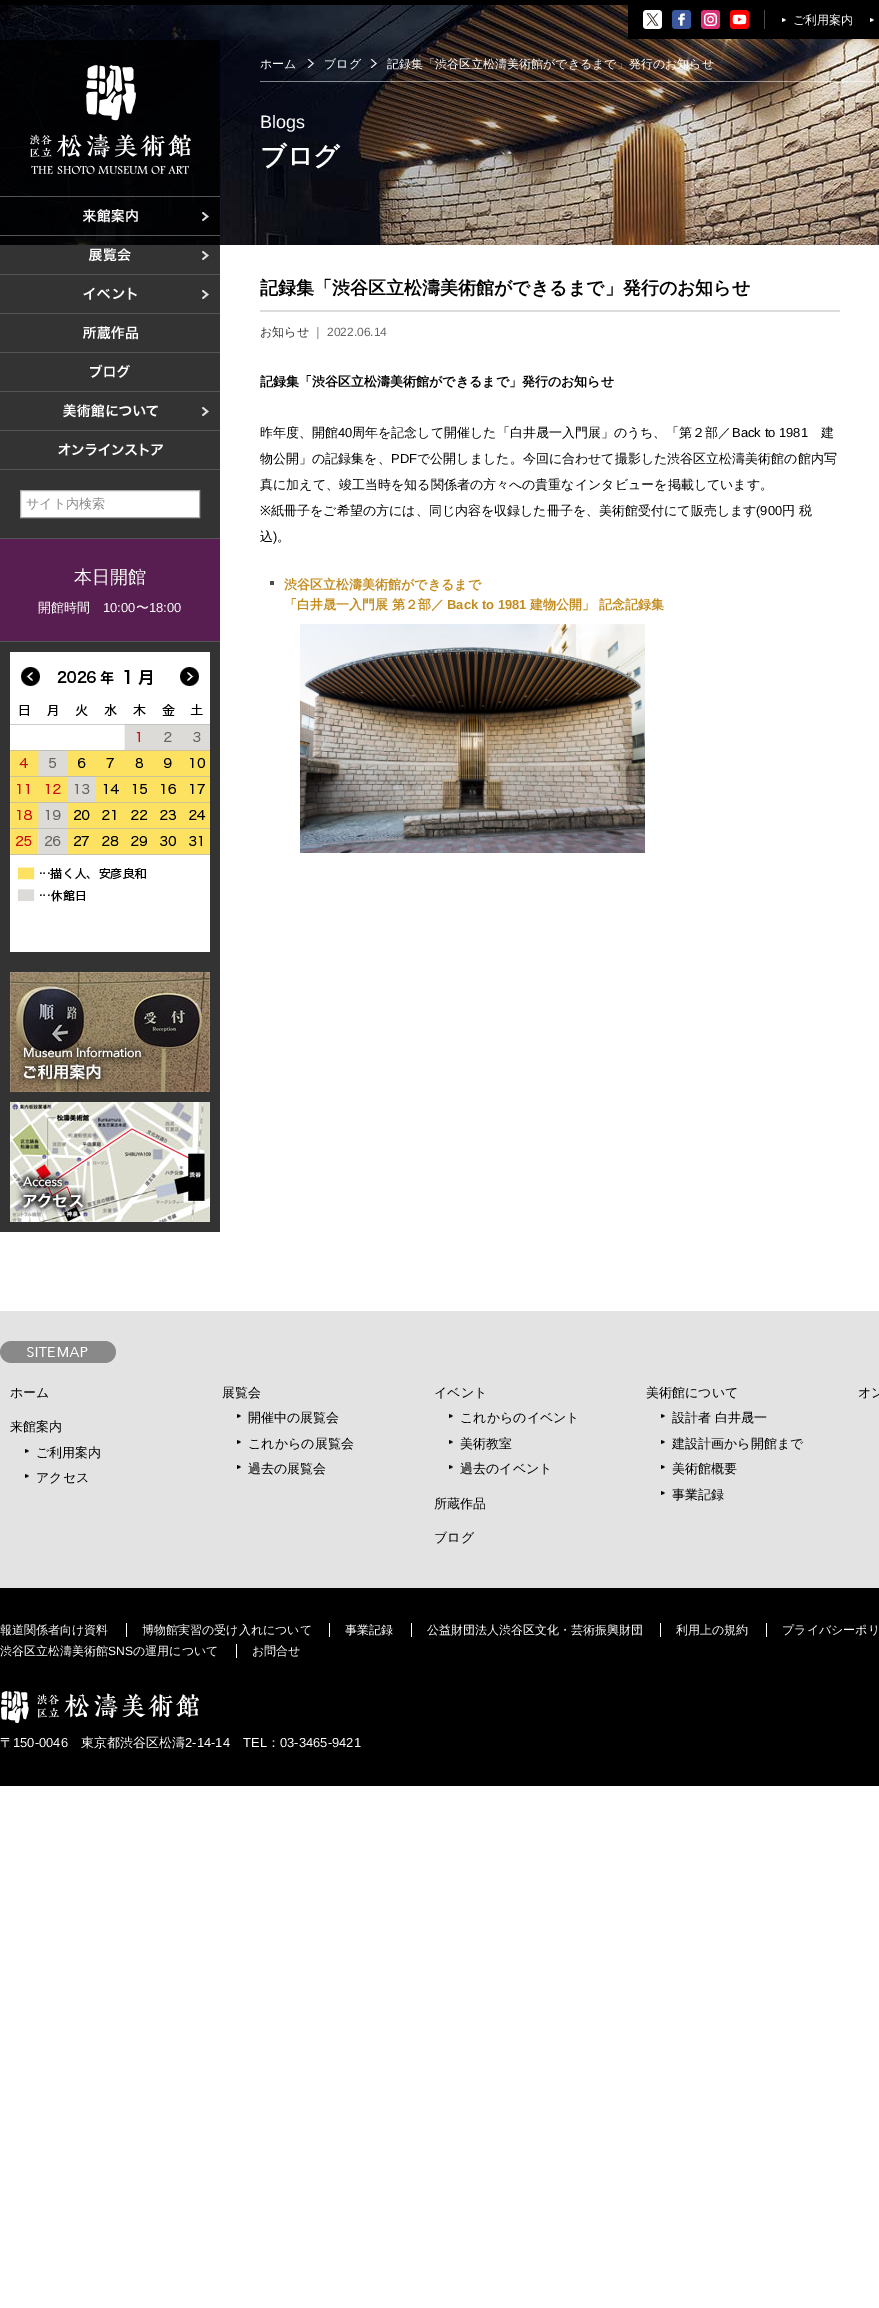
%!PS-Adobe-3.0
%%BoundingBox: 0 0 879 2308
%%LanguageLevel: 3
%%Pages: 1
%%EndComments
%%BeginProlog
/setalpha { dup .setfillconstantalpha .setstrokeconstantalpha } def
/drawimage { 5 dict begin { /h /w /y /x /name } { exch def } forall
  gsave x y translate w h scale
  w h 8 [w 0 0 h 0 0] name (r) file false 3 colorimage grestore end } def
%%EndProlog
%%BeginSetup
<< /PageSize [879 2308] /PageUsesTransparency true >> setpagedevice
%%EndSetup
%%Page: 1 1
0 .pushpdf14devicefilter
0 2308 translate 1 -1 scale
4 setmiterlimit
1 setgray
0 0 879 2308 rectfill
(images/1.raw) 0 5 879 240 drawimage
0 setgray
0 0 879 5 rectfill
628 5 251 34 rectfill
0.294 setgray
764 10 1 19 rectfill
(images/2.raw) 643 10 19 19 drawimage
(images/3.raw) 672 10 19 19 drawimage
(images/4.raw) 701 10 19 19 drawimage
(images/5.raw) 730 10 19 19 drawimage
(images/6.raw) 782 18 4 4 drawimage
(images/6.raw) 870 18 4 4 drawimage
0.8 setalpha
0 setgray
0 40 220 1192 rectfill
1 setalpha
(images/7.raw) 86 65 50 56 drawimage
(images/8.raw) 30 134 161 40 drawimage
0.333 setgray
0 196 220 1 rectfill
(images/9.raw) 202 212 7 9 drawimage
(images/10.raw) 83 209 55 14 drawimage
0 235 220 1 rectfill
(images/11.raw) 202 251 7 9 drawimage
(images/12.raw) 88 248 43 14 drawimage
0 274 220 1 rectfill
(images/11.raw) 202 290 7 9 drawimage
(images/13.raw) 83 287 54 13 drawimage
0 313 220 1 rectfill
(images/14.raw) 83 326 55 14 drawimage
0 352 220 1 rectfill
(images/15.raw) 90 364 40 14 drawimage
0 391 220 1 rectfill
(images/11.raw) 202 407 7 9 drawimage
(images/16.raw) 63 404 95 14 drawimage
0 430 220 1 rectfill
(images/17.raw) 58 443 105 13 drawimage
0 469 220 1 rectfill
1 setgray
newpath 20.5 490.5 moveto 199.5 490.5 lineto 199.5 517.5 lineto 20.5 517.5 lineto closepath gsave fill grestore
0.667 setgray
stroke
0.349 0.118 0.318 setrgbcolor
0 539 220 102 rectfill
0.333 setgray
0 538 220 1 rectfill
0 641 220 1 rectfill
(images/18.raw) 10 652 200 300 drawimage
(images/19.raw) 21 667 19 19 drawimage
(images/20.raw) 180 667 19 19 drawimage
(images/21.raw) 10 972 200 120 drawimage
(images/22.raw) 10 1102 200 120 drawimage
0.5 setalpha
1 setgray
260 81 619 1 rectfill
1 setalpha
(images/23.raw) 307 59 7 9 drawimage
(images/24.raw) 370 59 7 9 drawimage
0.867 setgray
260 310 580 2 rectfill
0.302 setgray
270 581 4 4 rectfill
(images/25.raw) 300 624 345 229 drawimage
0.89 setgray
0 1311 879 277 rectfill
(images/26.raw) 0 1341 116 22 drawimage
(images/27.raw) 25 1449 4 4 drawimage
(images/27.raw) 25 1474 4 4 drawimage
(images/27.raw) 237 1414 4 4 drawimage
(images/27.raw) 237 1440 4 4 drawimage
(images/27.raw) 237 1465 4 4 drawimage
(images/27.raw) 449 1414 4 4 drawimage
(images/27.raw) 449 1440 4 4 drawimage
(images/27.raw) 449 1465 4 4 drawimage
(images/27.raw) 661 1414 4 4 drawimage
(images/27.raw) 661 1440 4 4 drawimage
(images/27.raw) 661 1465 4 4 drawimage
(images/27.raw) 661 1491 4 4 drawimage
0 setgray
0 1588 879 198 rectfill
1 setgray
126 1623 1 14 rectfill
329 1623 1 14 rectfill
411 1623 1 14 rectfill
660 1623 1 14 rectfill
766 1623 1 14 rectfill
236 1644 1 14 rectfill
(images/28.raw) 1 1691 198 32 drawimage
/WenQuanYiZenHei-Medium [12 0 0 -12 0 0] selectfont
793 24 moveto (ご利用案内) show
/WenQuanYiZenHei-Medium [13 0 0 -13 0 0] selectfont
0.533 setgray
26 508 moveto (サイト内検索) show
/WenQuanYiZenHei-Medium [18 0 0 -18 0 0] selectfont
1 setgray
74 583 moveto (本日開館) show
/WenQuanYiZenHei-Medium [13 0 0 -13 0 0] selectfont
38 612 moveto (開館時間) show
/LiberationSans-Regular [13 0 0 -13 0 0] selectfont
103 612 moveto (10:00) show
/WenQuanYiZenHei-Medium [13 0 0 -13 0 0] selectfont
136 612 moveto (〜) show
/LiberationSans-Regular [13 0 0 -13 0 0] selectfont
149 612 moveto (18:00) show
/WenQuanYiZenHei-Medium [12 0 0 -12 0 0] selectfont
260 68 moveto (ホーム) show
324 68 moveto (ブログ) show
387 68 moveto (記録集「渋谷区立松濤美術館ができるまで」発行のお知らせ) show
/LiberationSans-Regular [18 0 0 -18 0 0] selectfont
260 128 moveto (Blogs) show
/WenQuanYiZenHei-Bold [26 0 0 -26 0 0] selectfont
260 165 moveto (ブログ) show
/WenQuanYiZenHei-Bold [18 0 0 -18 0 0] selectfont
0 setgray
260 294 moveto (記録集「渋谷区立松濤美術館ができるまで」発行のお知らせ) show
/WenQuanYiZenHei-Medium [12 0 0 -12 0 0] selectfont
0.2 setgray
260 336 moveto (お知らせ) show
0.4 setgray
312 336 moveto (｜) show
/LiberationSans-Regular [12 0 0 -12 0 0] selectfont
327 336 moveto (2022.06.14) show
/WenQuanYiZenHei-Bold [13 0 0 -13 0 0] selectfont
0 setgray
260 386 moveto (記録集「渋谷区立松濤美術館ができるまで」発行のお知らせ) show
/WenQuanYiZenHei-Medium [13 0 0 -13 0 0] selectfont
260 437 moveto (昨年度、開館) show
/LiberationSans-Regular [13 0 0 -13 0 0] selectfont
338 437 moveto (40) show
/WenQuanYiZenHei-Medium [13 0 0 -13 0 0] selectfont
352 437 moveto (周年を記念して開催した「白井晟一入門展」のうち、「第２部／) show
/LiberationSans-Regular [13 0 0 -13 0 0] selectfont
732 437 moveto (Back to 1981) show
/WenQuanYiZenHei-Medium [13 0 0 -13 0 0] selectfont
821 437 moveto (建) show
260 463 moveto (物公開」の記録集を、) show
/LiberationSans-Regular [13 0 0 -13 0 0] selectfont
391 463 moveto (PDF) show
/WenQuanYiZenHei-Medium [13 0 0 -13 0 0] selectfont
417 463 moveto (で公開しました。今回に合わせて撮影した渋谷区立松濤美術館の館内写) show
260 489 moveto (真に加えて、竣工当時を知る関係者の方々への貴重なインタビューを掲載しています。) show
/NotoSans-Regular [13 0 0 -13 0 0] selectfont
260 515 moveto (※) show
/WenQuanYiZenHei-Medium [13 0 0 -13 0 0] selectfont
271 515 moveto (紙冊子をご希望の方には、同じ内容を収録した冊子を、美術館受付にて販売します) show
/LiberationSans-Regular [13 0 0 -13 0 0] selectfont
756 515 moveto (\(900) show
/WenQuanYiZenHei-Medium [13 0 0 -13 0 0] selectfont
782 515 moveto (円 税) show
260 541 moveto (込) show
/LiberationSans-Regular [13 0 0 -13 0 0] selectfont
273 541 moveto (\)) show
/WenQuanYiZenHei-Medium [13 0 0 -13 0 0] selectfont
277 541 moveto (。) show
/WenQuanYiZenHei-Bold [13 0 0 -13 0 0] selectfont
0.765 0.541 0.11 setrgbcolor
284 589 moveto (渋谷区立松濤美術館ができるまで) show
284 609 moveto (「白井晟一入門展 第２部／) show
/LiberationSans-Bold [13 0 0 -13 0 0] selectfont
447 609 moveto (Back to 1981) show
/WenQuanYiZenHei-Bold [13 0 0 -13 0 0] selectfont
530 609 moveto (建物公開」 記念記録集) show
/WenQuanYiZenHei-Medium [13 0 0 -13 0 0] selectfont
0 setgray
10 1397 moveto (ホーム) show
10 1431 moveto (来館案内) show
36 1457 moveto (ご利用案内) show
36 1482 moveto (アクセス) show
222 1397 moveto (展覧会) show
248 1422 moveto (開催中の展覧会) show
248 1448 moveto (これからの展覧会) show
248 1473 moveto (過去の展覧会) show
434 1397 moveto (イベント) show
460 1422 moveto (これからのイベント) show
460 1448 moveto (美術教室) show
460 1473 moveto (過去のイベント) show
434 1508 moveto (所蔵作品) show
434 1542 moveto (ブログ) show
646 1397 moveto (美術館について) show
672 1422 moveto (設計者 白井晟一) show
672 1448 moveto (建設計画から開館まで) show
672 1473 moveto (美術館概要) show
672 1499 moveto (事業記録) show
858 1397 moveto (オン) show
/WenQuanYiZenHei-Medium [12 0 0 -12 0 0] selectfont
1 setgray
0 1634 moveto (報道関係者向け資料) show
142 1634 moveto (博物館実習の受け入れについて) show
345 1634 moveto (事業記録) show
427 1634 moveto (公益財団法人渋谷区文化・芸術振興財団) show
676 1634 moveto (利用上の規約) show
782 1634 moveto (プライバシーポリ) show
0 1655 moveto (渋谷区立松濤美術館) show
/LiberationSans-Regular [12 0 0 -12 0 0] selectfont
108 1655 moveto (SNS) show
/WenQuanYiZenHei-Medium [12 0 0 -12 0 0] selectfont
133 1655 moveto (の運用について) show
252 1655 moveto (お問合せ) show
/WenQuanYiZenHei-Medium [13 0 0 -13 0 0] selectfont
0 1747 moveto (〒) show
/LiberationSans-Regular [13 0 0 -13 0 0] selectfont
13 1747 moveto (150-0046) show
/WenQuanYiZenHei-Medium [13 0 0 -13 0 0] selectfont
81 1747 moveto (東京都渋谷区松濤) show
/LiberationSans-Regular [13 0 0 -13 0 0] selectfont
185 1747 moveto (2-14-14) show
243 1747 moveto (TEL) show
/WenQuanYiZenHei-Medium [13 0 0 -13 0 0] selectfont
267 1747 moveto (：) show
/LiberationSans-Regular [13 0 0 -13 0 0] selectfont
280 1747 moveto (03-3465-9421) show
.poppdf14devicefilter showpage
%%EOF
